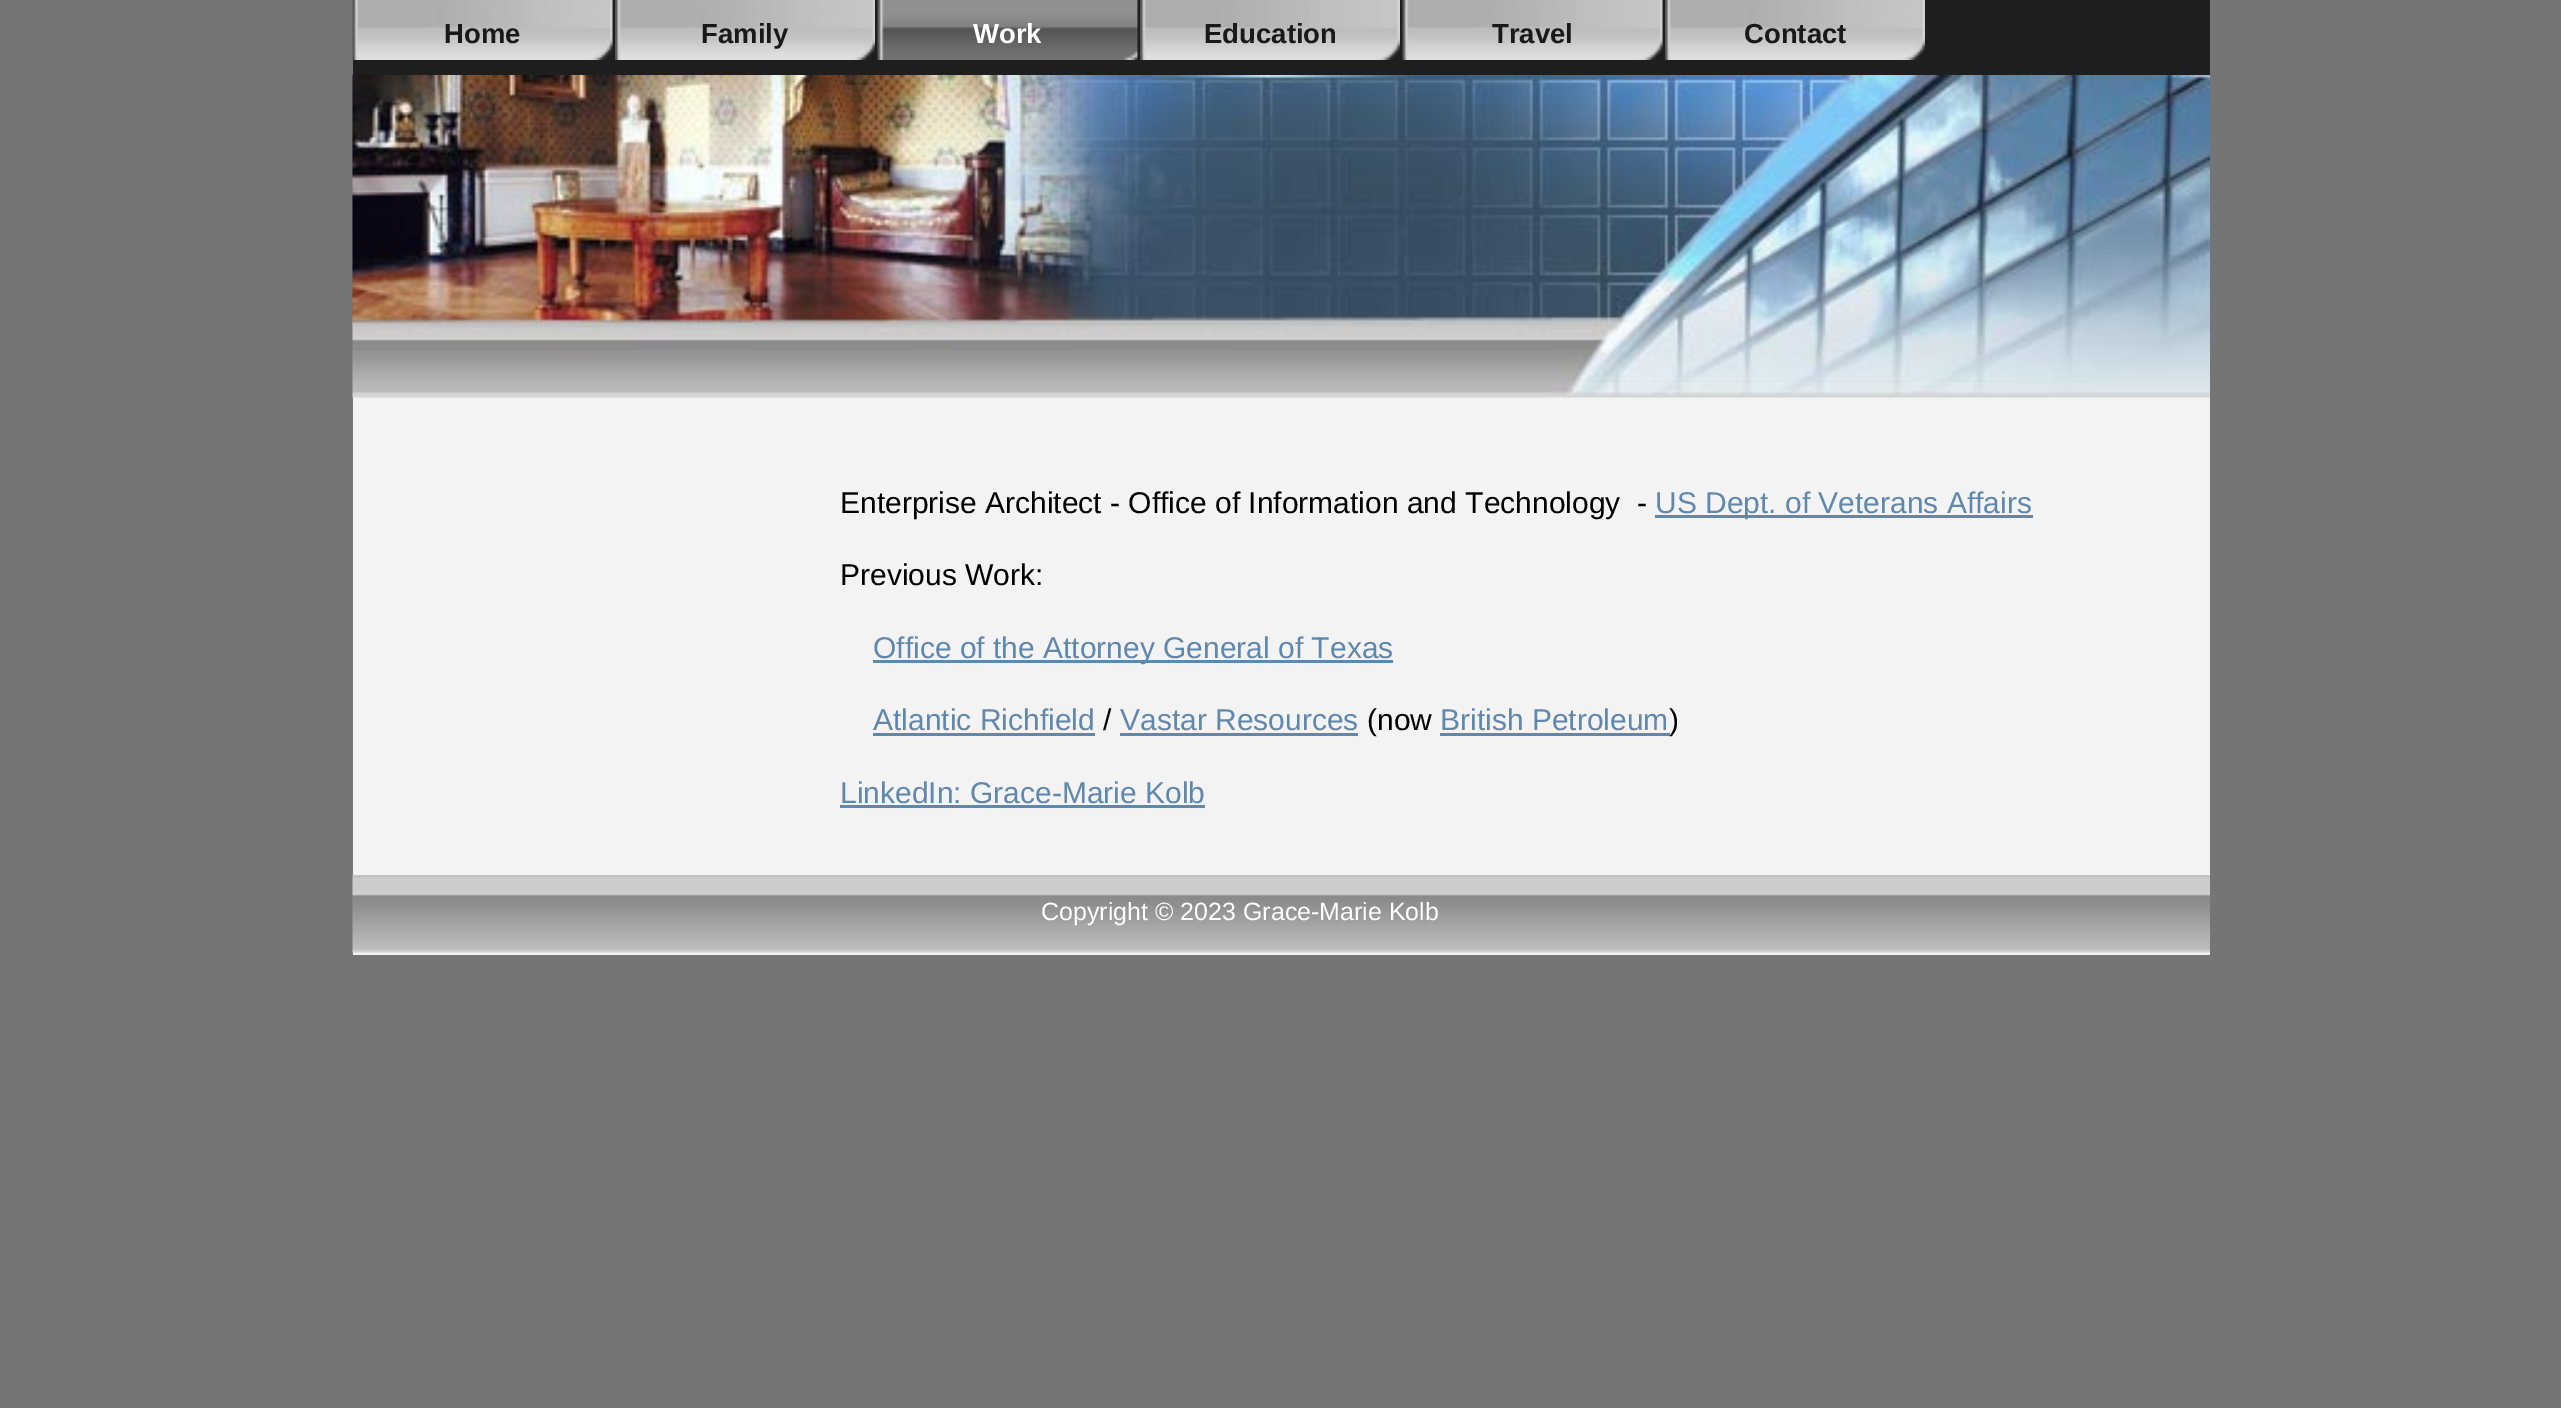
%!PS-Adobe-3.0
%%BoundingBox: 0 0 2561 1408
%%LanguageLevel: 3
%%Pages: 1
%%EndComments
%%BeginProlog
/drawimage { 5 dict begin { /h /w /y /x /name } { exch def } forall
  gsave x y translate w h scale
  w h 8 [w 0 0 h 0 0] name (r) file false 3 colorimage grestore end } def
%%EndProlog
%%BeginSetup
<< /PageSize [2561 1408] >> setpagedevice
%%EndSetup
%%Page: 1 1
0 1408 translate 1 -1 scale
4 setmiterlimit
0.459 setgray
0 0 2561 1408 rectfill
0.118 setgray
353 0 1857 75 rectfill
(images/1.raw) 352 0 261 60 drawimage
(images/2.raw) 615 0 260 60 drawimage
(images/3.raw) 877 0 261 60 drawimage
(images/4.raw) 1140 0 260 60 drawimage
(images/5.raw) 1402 0 261 60 drawimage
(images/6.raw) 1665 0 260 60 drawimage
0.953 setgray
353 397 1857 558 rectfill
(images/7.raw) 352 75 1858 323 drawimage
(images/8.raw) 352 75 1000 250 drawimage
0.376 0.533 0.678 setrgbcolor
1655 515 378 3 rectfill
873 660 520 3 rectfill
873 733 222 3 rectfill
1120 733 238 3 rectfill
1440 733 230 3 rectfill
840 805 365 3 rectfill
(images/9.raw) 352 875 1858 78 drawimage
/LiberationSans-Bold [27.5 0 0 -27.5 0 0] selectfont
0.098 setgray
444 43 moveto (Home) show
701 43 moveto (Family) show
1 setgray
973 43 moveto (Work) show
0.098 setgray
1204 43 moveto (Education) show
1492 43 moveto (Travel) show
1744 43 moveto (Contact) show
/LiberationSans-Regular [30 0 0 -30 0 0] selectfont
0 setgray
840 513 moveto (Enterprise Architect - Office of Information and Technology  -) show
0.376 0.533 0.678 setrgbcolor
1655 513 moveto (US Dept. of Veterans Affairs) show
0 setgray
840 585 moveto (Previous Work:) show
0.376 0.533 0.678 setrgbcolor
873 658 moveto (Office of the Attorney General of Texas) show
873 730 moveto (Atlantic Richfield) show
0 setgray
1103 730 moveto (/) show
0.376 0.533 0.678 setrgbcolor
1120 730 moveto (Vastar Resources) show
0 setgray
1367 730 moveto (\(now) show
0.376 0.533 0.678 setrgbcolor
1440 730 moveto (British Petroleum) show
0 setgray
1669 730 moveto (\)) show
0.376 0.533 0.678 setrgbcolor
840 803 moveto (LinkedIn: Grace-Marie Kolb) show
/LiberationSans-Regular [25 0 0 -25 0 0] selectfont
1 setgray
1041 920 moveto (Copyright © 2023 Grace-Marie Kolb) show
showpage
%%EOF
